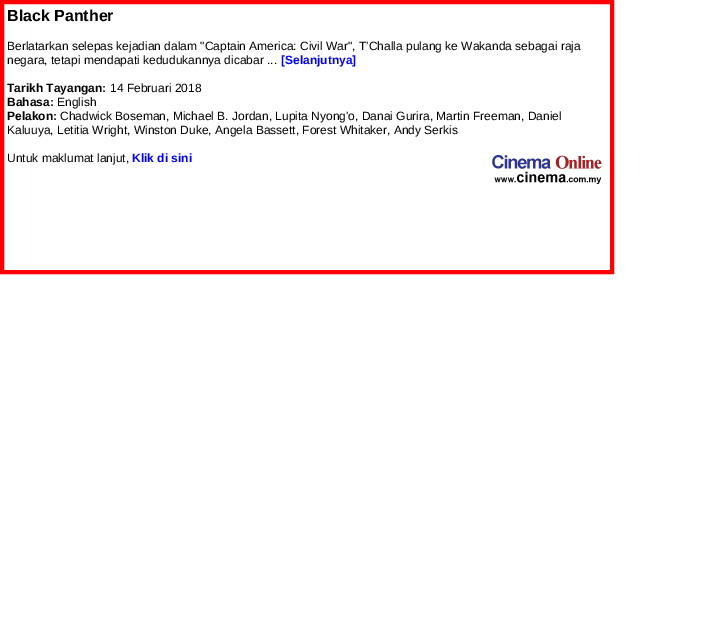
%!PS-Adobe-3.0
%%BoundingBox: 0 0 718 639
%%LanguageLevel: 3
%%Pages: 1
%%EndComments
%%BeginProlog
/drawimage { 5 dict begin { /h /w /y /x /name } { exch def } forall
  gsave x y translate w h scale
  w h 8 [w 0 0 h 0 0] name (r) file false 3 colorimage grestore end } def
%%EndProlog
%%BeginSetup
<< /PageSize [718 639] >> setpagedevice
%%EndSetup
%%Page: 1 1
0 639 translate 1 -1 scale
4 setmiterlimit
1 setgray
0 0 718 639 rectfill
1 0 0 setrgbcolor
4 setlinewidth
2 2 610 270 rectstroke
(images/1.raw) 492 155 110 29 drawimage
/LiberationSans-Bold [16 0 0 -16 0 0] selectfont
0 setgray
7 21 moveto (Black Panther) show
/LiberationSans-Regular [12 0 0 -12 0 0] selectfont
7 50 moveto (Berlatarkan selepas kejadian dalam "Captain America: Civil War", T'Challa pulang ke Wakanda sebagai raja) show
7 64 moveto (negara, tetapi mendapati kedudukannya dicabar ...) show
/LiberationSans-Bold [12 0 0 -12 0 0] selectfont
0 0 1 setrgbcolor
281 64 moveto ([Selanjutnya]) show
0 setgray
7 92 moveto (Tarikh Tayangan:) show
/LiberationSans-Regular [12 0 0 -12 0 0] selectfont
110 92 moveto (14 Februari 2018) show
/LiberationSans-Bold [12 0 0 -12 0 0] selectfont
7 106 moveto (Bahasa:) show
/LiberationSans-Regular [12 0 0 -12 0 0] selectfont
57 106 moveto (English) show
/LiberationSans-Bold [12 0 0 -12 0 0] selectfont
7 120 moveto (Pelakon:) show
/LiberationSans-Regular [12 0 0 -12 0 0] selectfont
60 120 moveto (Chadwick Boseman, Michael B. Jordan, Lupita Nyong'o, Danai Gurira, Martin Freeman, Daniel) show
7 134 moveto (Kaluuya, Letitia Wright, Winston Duke, Angela Bassett, Forest Whitaker, Andy Serkis) show
7 162 moveto (Untuk maklumat lanjut,) show
/LiberationSans-Bold [12 0 0 -12 0 0] selectfont
0 0 1 setrgbcolor
132 162 moveto (Klik di sini) show
showpage
%%EOF
